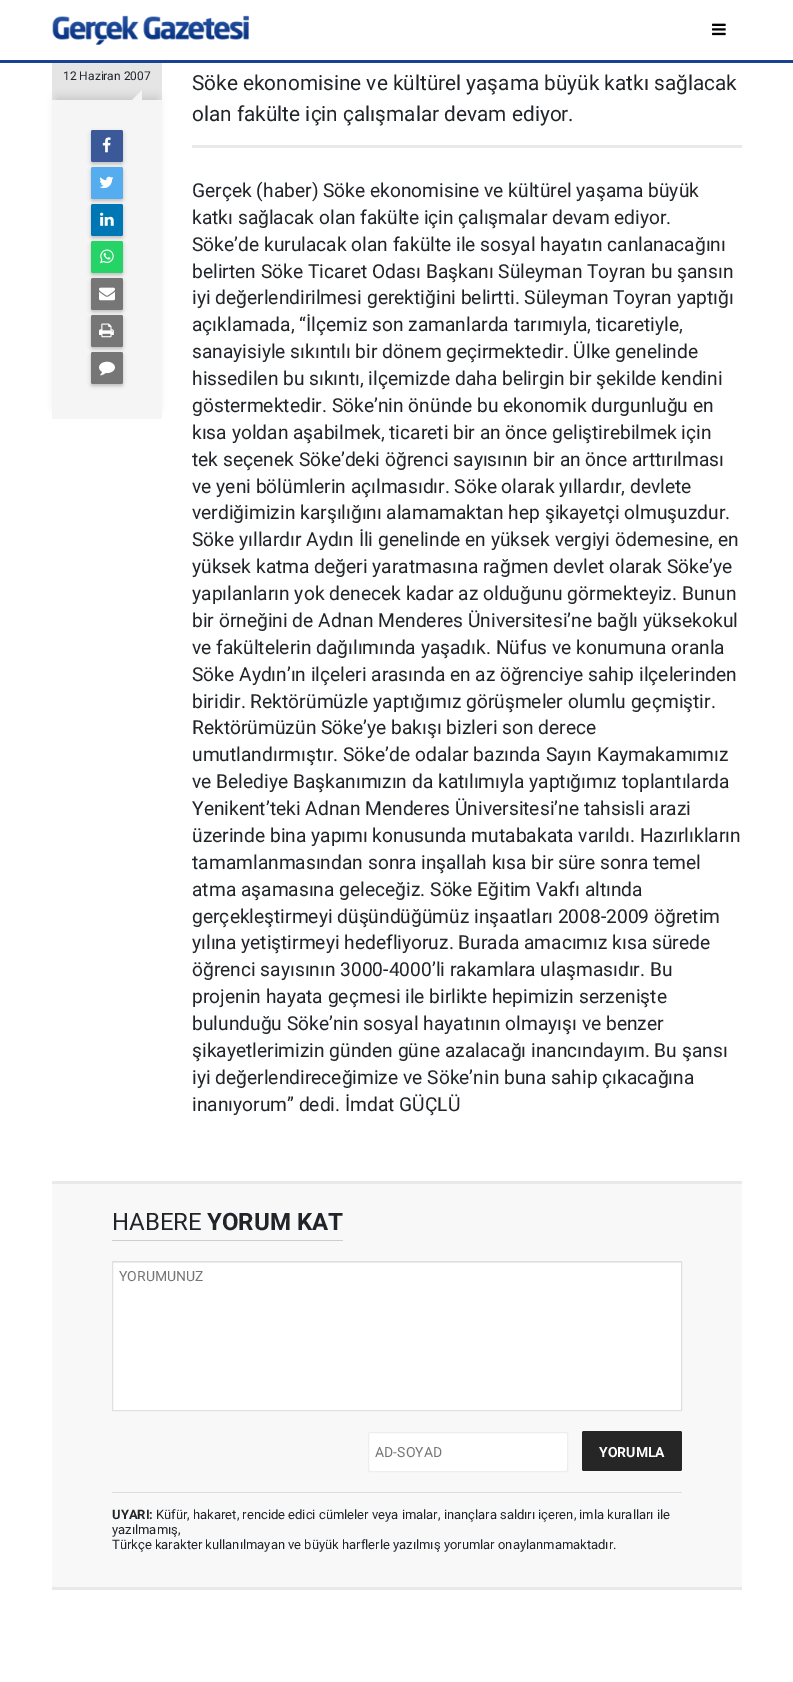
%!PS-Adobe-3.0
%%BoundingBox: 0 0 793 1682
%%LanguageLevel: 3
%%Pages: 1
%%EndComments
%%BeginProlog
/setalpha { dup .setfillconstantalpha .setstrokeconstantalpha } def
/rrect { 5 dict begin { /r /h /w /y /x } { exch def } forall
  x r add y moveto x w add y 2 copy h add r arct x w add y h add x 1 index r arct
  x y h add x y r arct x y 2 copy exch w add exch r arct closepath end } def
/softshadow { 12 dict begin { /a /b /q /h /w /y /x } { exch def } forall gsave /was 0 def
  9 -2 -9 { dup b mul 4 div /e exch def 1 sub .425 mul 2.718 exch exp 1 add a .99 .min exch div /now exch def
    1 1 now sub 1 was sub div sub setalpha /was now def
    w h .min e 2 mul add 0 gt { x e sub y e sub w e 2 mul add h e 2 mul add
      q e add b .6 mul add w h .min 2 div e add .min 0 .max rrect fill } if } for grestore end } def
/drawimage { 5 dict begin { /h /w /y /x /name } { exch def } forall
  gsave x y translate w h scale
  w h 8 [w 0 0 h 0 0] name (r) file false 3 colorimage grestore end } def
%%EndProlog
%%BeginSetup
<< /PageSize [793 1682] /PageUsesTransparency true >> setpagedevice
%%EndSetup
%%Page: 1 1
0 .pushpdf14devicefilter
0 1682 translate 1 -1 scale
4 setmiterlimit
1 setgray
0 0 793 1682 rectfill
0.094 0.263 0.576 setrgbcolor
0 60 793 3 rectfill
(images/1.raw) 52 15 197 30 drawimage
(images/2.raw) 712 23 14 13 drawimage
0.898 setgray
52 63 110 37 rectfill
0 setgray
57 98 100 309 0 5 0.15 softshadow
0.961 setgray
52 100 110 319 rectfill
newpath 142 100 moveto 132 100 lineto 142 90 lineto closepath fill
0.196 setgray
91 132 32 32 2 2 0.3 softshadow
0.231 0.349 0.6 setrgbcolor
91 130 32 32 2 rrect fill
(images/3.raw) 102 137 9 16 drawimage
0.196 setgray
91 169 32 32 2 2 0.3 softshadow
0.333 0.675 0.933 setrgbcolor
91 167 32 32 2 rrect fill
(images/4.raw) 99 176 15 13 drawimage
0.196 setgray
91 206 32 32 2 2 0.3 softshadow
0 0.467 0.71 setrgbcolor
91 204 32 32 2 rrect fill
(images/5.raw) 100 212 14 14 drawimage
0.196 setgray
91 243 32 32 2 2 0.3 softshadow
0.145 0.827 0.4 setrgbcolor
91 241 32 32 2 rrect fill
(images/6.raw) 100 249 14 15 drawimage
0.196 setgray
91 280 32 32 2 2 0.3 softshadow
0.463 setgray
91 278 32 32 2 rrect fill
(images/7.raw) 99 287 16 14 drawimage
0.196 setgray
91 317 32 32 2 2 0.3 softshadow
0.463 setgray
91 315 32 32 2 rrect fill
(images/8.raw) 99 323 15 15 drawimage
0.196 setgray
91 354 32 32 2 2 0.3 softshadow
0.463 setgray
91 352 32 32 2 rrect fill
(images/9.raw) 99 361 16 15 drawimage
0.914 setgray
192 145 550 3 rectfill
0.973 setgray
52 1184 690 403 rectfill
0.914 setgray
52 1181 690 3 rectfill
52 1587 690 3 rectfill
0.808 setgray
112 1240 231 1 rectfill
1 setgray
113 1263 568 147 rectfill
0.925 setgray
113 1262 568 1 rectfill
0.878 setgray
112.5 1261.5 569 149 rectstroke
1 setgray
368.5 1432.5 199 39 1.5 rrect gsave fill grestore
0.929 setgray
stroke
0.149 setgray
582 1431 100 40 2 rrect fill
0.867 setgray
112 1492 570 1 rectfill
/Roboto-Regular [12 0 0 -12 0 0] selectfont
0.129 0.145 0.161 setrgbcolor
63 80 moveto (12 Haziran 2007) show
/Roboto-Regular [20.8 0 0 -20.8 0 0] selectfont
192 90 moveto (Söke ekonomisine ve kültürel yaşama büyük katkı sağlacak) show
192 121 moveto (olan fakülte için çalışmalar devam ediyor.) show
/Roboto-Regular [19.2 0 0 -19.2 0 0] selectfont
192 197 moveto (Gerçek \(haber\) Söke ekonomisine ve kültürel yaşama büyük) show
192 224 moveto (katkı sağlacak olan fakülte için çalışmalar devam ediyor.) show
192 251 moveto (Söke’de kurulacak olan fakülte ile sosyal hayatın canlanacağını) show
192 278 moveto (belirten Söke Ticaret Odası Başkanı Süleyman Toyran bu şansın) show
192 304 moveto (iyi değerlendirilmesi gerektiğini belirtti. Süleyman Toyran yaptığı) show
192 331 moveto (açıklamada, “İlçemiz son zamanlarda tarımıyla, ticaretiyle,) show
192 358 moveto (sanayisiyle sıkıntılı bir dönem geçirmektedir. Ülke genelinde) show
192 385 moveto (hissedilen bu sıkıntı, ilçemizde daha belirgin bir şekilde kendini) show
192 412 moveto (göstermektedir. Söke’nin önünde bu ekonomik durgunluğu en) show
192 439 moveto (kısa yoldan aşabilmek, ticareti bir an önce geliştirebilmek için) show
192 466 moveto (tek seçenek Söke’deki öğrenci sayısının bir an önce arttırılması) show
192 493 moveto (ve yeni bölümlerin açılmasıdır. Söke olarak yıllardır, devlete) show
192 519 moveto (verdiğimizin karşılığını alamamaktan hep şikayetçi olmuşuzdur.) show
192 546 moveto (Söke yıllardır Aydın İli genelinde en yüksek vergiyi ödemesine, en) show
192 573 moveto (yüksek katma değeri yaratmasına rağmen devlet olarak Söke’ye) show
192 600 moveto (yapılanların yok denecek kadar az olduğunu görmekteyiz. Bunun) show
192 627 moveto (bir örneğini de Adnan Menderes Üniversitesi’ne bağlı yüksekokul) show
192 654 moveto (ve fakültelerin dağılımında yaşadık. Nüfus ve konumuna oranla) show
192 681 moveto (Söke Aydın’ın ilçeleri arasında en az öğrenciye sahip ilçelerinden) show
192 708 moveto (biridir. Rektörümüzle yaptığımız görüşmeler olumlu geçmiştir.) show
192 734 moveto (Rektörümüzün Söke’ye bakışı bizleri son derece) show
192 761 moveto (umutlandırmıştır. Söke’de odalar bazında Sayın Kaymakamımız) show
192 788 moveto (ve Belediye Başkanımızın da katılımıyla yaptığımız toplantılarda) show
192 815 moveto (Yenikent’teki Adnan Menderes Üniversitesi’ne tahsisli arazi) show
192 842 moveto (üzerinde bina yapımı konusunda mutabakata varıldı. Hazırlıkların) show
192 869 moveto (tamamlanmasından sonra inşallah kısa bir süre sonra temel) show
192 896 moveto (atma aşamasına geleceğiz. Söke Eğitim Vakfı altında) show
192 923 moveto (gerçekleştirmeyi düşündüğümüz inşaatları 2008-2009 öğretim) show
192 949 moveto (yılına yetiştirmeyi hedefliyoruz. Burada amacımız kısa sürede) show
192 976 moveto (öğrenci sayısının 3000-4000’li rakamlara ulaşmasıdır. Bu) show
192 1003 moveto (projenin hayata geçmesi ile birlikte hepimizin serzenişte) show
192 1030 moveto (bulunduğu Söke’nin sosyal hayatının olmayışı ve benzer) show
192 1057 moveto (şikayetlerimizin günden güne azalacağı inancındayım. Bu şansı) show
192 1084 moveto (iyi değerlendireceğimize ve Söke’nin buna sahip çıkacağına) show
192 1111 moveto (inanıyorum” dedi. İmdat GÜÇLÜ) show
/Roboto-Regular [24 0 0 -24 0 0] selectfont
112 1230 moveto (HABERE) show
/Roboto-Bold [24 0 0 -24 0 0] selectfont
207 1230 moveto (YORUM KAT) show
/Roboto-Regular [14 0 0 -14 0 0] selectfont
0.459 setgray
119 1281 moveto (YORUMUNUZ) show
375 1457 moveto (AD-SOYAD) show
/Roboto-Bold [14 0 0 -14 0 0] selectfont
1 setgray
599 1457 moveto (YORUMLA) show
/Roboto-Bold [13 0 0 -13 0 0] selectfont
0.129 0.145 0.161 setrgbcolor
112 1519 moveto (UYARI:) show
/Roboto-Regular [13 0 0 -13 0 0] selectfont
156 1519 moveto (Küfür, hakaret, rencide edici cümleler veya imalar, inançlara saldırı içeren, imla kuralları ile) show
112 1534 moveto (yazılmamış,) show
112 1549 moveto (Türkçe karakter kullanılmayan ve büyük harflerle yazılmış yorumlar onaylanmamaktadır.) show
.poppdf14devicefilter showpage
%%EOF
